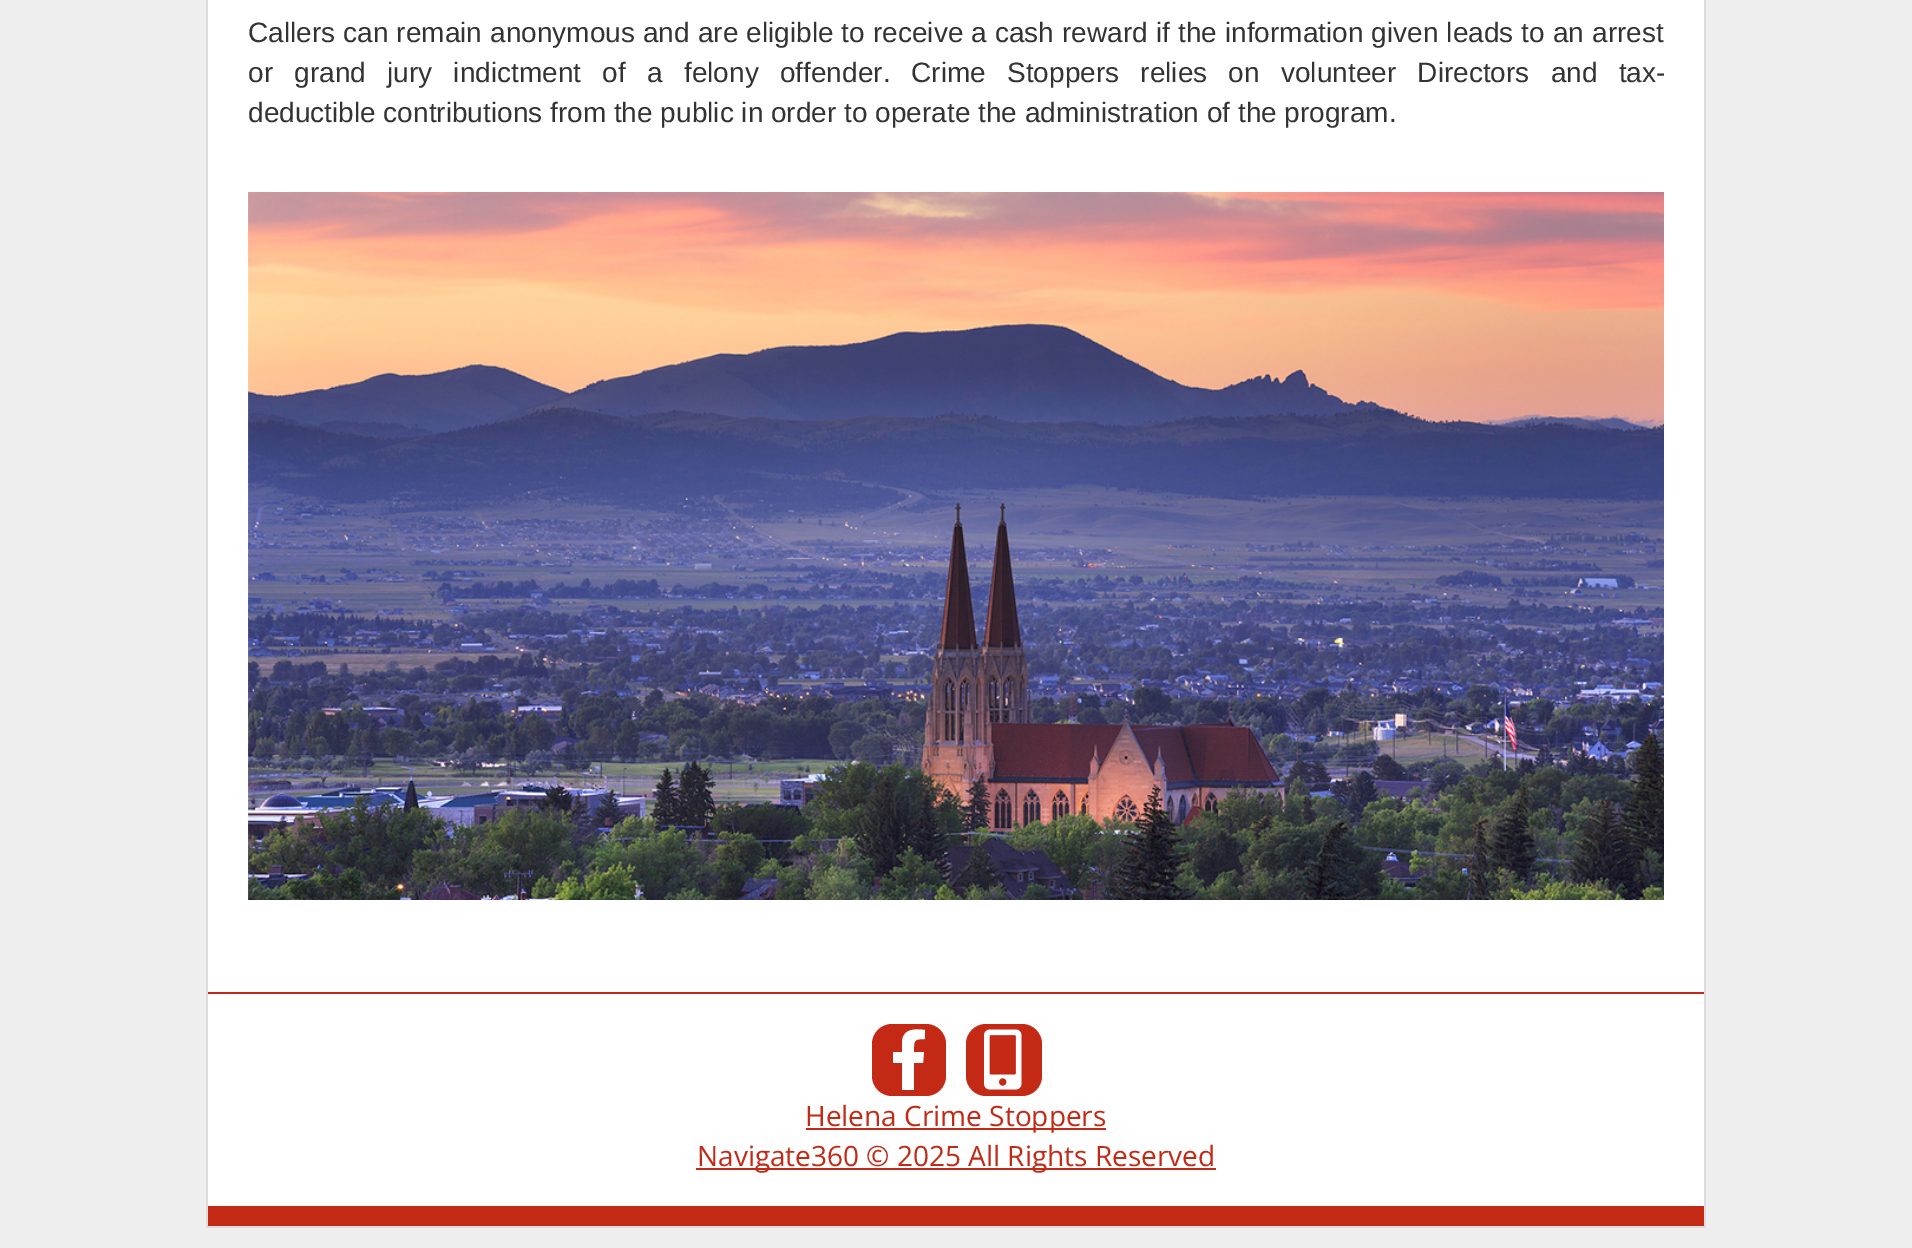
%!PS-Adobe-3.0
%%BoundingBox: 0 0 1912 1248
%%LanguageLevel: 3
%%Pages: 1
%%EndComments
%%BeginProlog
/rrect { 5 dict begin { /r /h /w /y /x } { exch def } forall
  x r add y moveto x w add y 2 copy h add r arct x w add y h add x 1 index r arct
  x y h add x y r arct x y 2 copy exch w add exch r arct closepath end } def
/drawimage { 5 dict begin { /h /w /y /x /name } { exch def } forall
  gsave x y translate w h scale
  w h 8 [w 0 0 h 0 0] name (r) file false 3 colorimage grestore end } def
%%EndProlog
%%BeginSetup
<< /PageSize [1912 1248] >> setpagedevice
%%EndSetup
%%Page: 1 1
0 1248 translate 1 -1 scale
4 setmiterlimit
0.933 setgray
0 0 1912 1248 rectfill
1 setgray
208 0 1496 1206 rectfill
0.867 setgray
1704 0 2 1228 rectfill
206 1226 1500 2 rectfill
206 0 2 1228 rectfill
(images/1.raw) 248 192 1416 708 drawimage
0.769 0.161 0.082 setrgbcolor
208 992 1496 2 rectfill
208 1206 1496 20 rectfill
872 1024 74 72 20 rrect fill
1 setgray
newpath 923 1063 moveto 914 1063 lineto 914 1090 lineto 902 1090 lineto 902 1063 lineto 893 1063 lineto 893 1052 lineto 902 1052 lineto 902 1041 lineto 904 1028 915 1029 925 1030 curveto 925 1039 lineto 913 1039 914 1041 914 1052 curveto 924 1052 lineto closepath fill
0.769 0.161 0.082 setrgbcolor
966 1024 76 72 20 rrect fill
(images/2.raw) 984 1029 38 61 drawimage
806 1128 300 2 rectfill
696 1168 520 2 rectfill
/LiberationSans-Regular [28 0 0 -28 0 0] selectfont
0.2 setgray
248 42 moveto 0.3 0 32 (Callers can remain anonymous and are eligible to receive a cash reward if the information given leads to an arrest) widthshow
248 82 moveto 13.5 0 32 (or grand jury indictment of a felony offender.) widthshow
911 82 moveto 13.5 0 32 (Crime Stoppers relies on volunteer Directors and tax-) widthshow
248 122 moveto (deductible contributions from the public in order to operate the administration of the program.) show
/OpenSans-Regular [28 0 0 -28 0 0] selectfont
0.769 0.161 0.082 setrgbcolor
805 1126 moveto (Helena Crime Stoppers) show
697 1166 moveto (Navigate360 © 2025 All Rights Reserved) show
showpage
%%EOF
